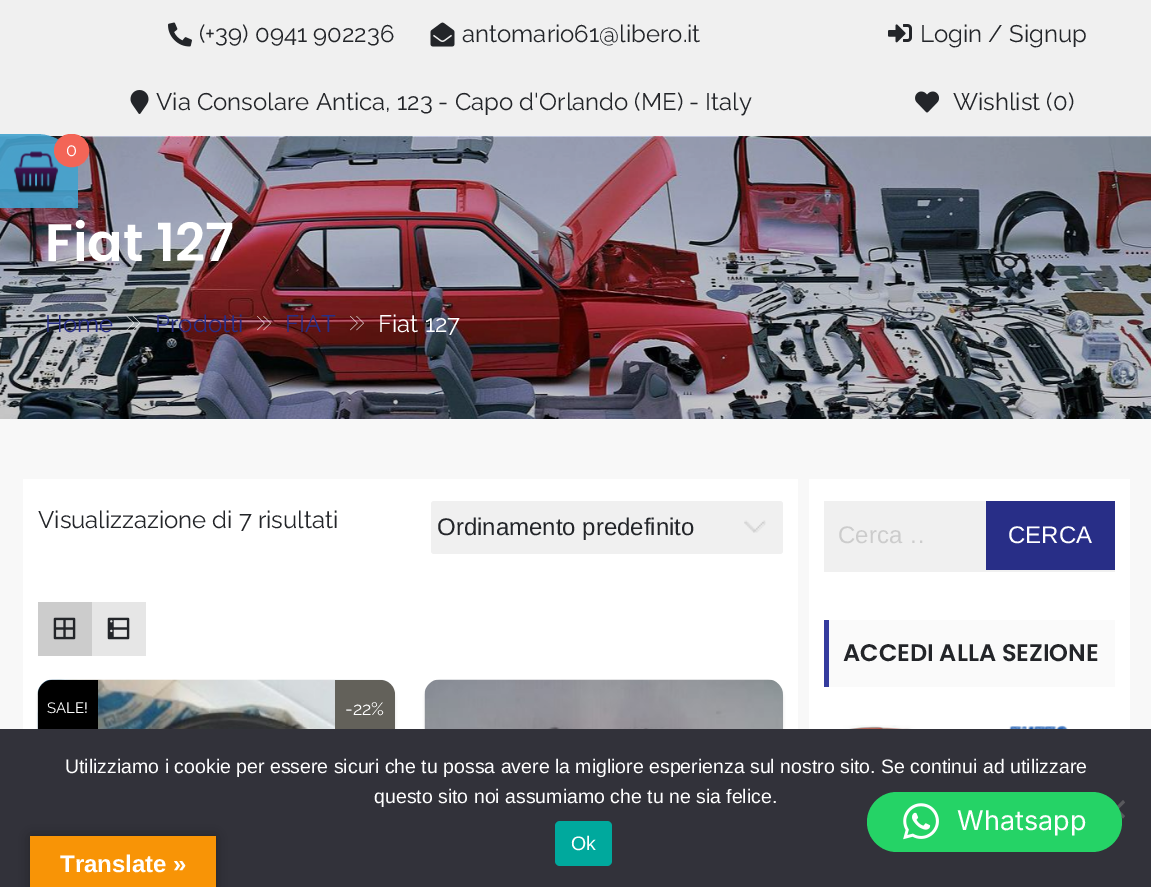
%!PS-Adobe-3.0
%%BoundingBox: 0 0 1151 887
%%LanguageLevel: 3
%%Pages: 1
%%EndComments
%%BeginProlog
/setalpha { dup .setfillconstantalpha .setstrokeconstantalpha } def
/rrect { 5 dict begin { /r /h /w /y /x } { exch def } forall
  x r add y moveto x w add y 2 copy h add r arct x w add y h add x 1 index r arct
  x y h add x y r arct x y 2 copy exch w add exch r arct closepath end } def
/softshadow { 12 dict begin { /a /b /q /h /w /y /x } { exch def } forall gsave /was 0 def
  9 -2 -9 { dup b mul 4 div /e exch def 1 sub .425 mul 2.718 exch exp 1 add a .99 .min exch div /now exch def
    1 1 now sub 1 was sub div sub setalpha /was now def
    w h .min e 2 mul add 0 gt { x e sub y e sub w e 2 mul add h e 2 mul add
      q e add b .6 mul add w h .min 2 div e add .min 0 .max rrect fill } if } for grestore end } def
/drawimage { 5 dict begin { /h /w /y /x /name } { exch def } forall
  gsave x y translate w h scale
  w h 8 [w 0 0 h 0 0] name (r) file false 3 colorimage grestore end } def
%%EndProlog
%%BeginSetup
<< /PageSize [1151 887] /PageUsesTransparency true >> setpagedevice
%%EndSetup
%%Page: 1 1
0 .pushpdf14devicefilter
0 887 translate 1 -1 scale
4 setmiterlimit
0.973 setgray
0 0 1151 887 rectfill
0.941 setgray
0 0 1151 136 rectfill
(images/1.raw) 168 22 24 25 drawimage
(images/2.raw) 430 22 25 25 drawimage
(images/3.raw) 130 90 19 24 drawimage
(images/4.raw) 888 24 24 19 drawimage
(images/5.raw) 915 91 24 22 drawimage
(images/7.raw) 0 136 1151 283 drawimage
0.9 setalpha
0.259 0.635 0.808 setrgbcolor
newpath -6 134 moveto 36 134 lineto 59 134 78 150 78 171 curveto 78 208 lineto -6 208 lineto closepath fill
1 setalpha
(images/6.raw) 13 151 46 42 drawimage
0.953 0.396 0.341 setrgbcolor
55 135 33 31 15.5 rrect gsave fill grestore
2 setlinewidth
stroke
(images/8.raw) 126 316 15 15 drawimage
(images/9.raw) 257 316 14 15 drawimage
(images/10.raw) 350 316 14 15 drawimage
1 setgray
23 479 775 250 rectfill
0.941 setgray
431 501 352 53 3 rrect fill
(images/11.raw) 744 520 22 13 drawimage
0.8 setgray
38 602 54 54 rectfill
(images/12.raw) 53 617 23 23 drawimage
0.902 setgray
92 602 54 54 rectfill
(images/13.raw) 107 617 23 23 drawimage
0.608 setgray
38 683 357 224 15 1.5 0.25 softshadow
(images/14.raw) 37 679 358 50 drawimage
0 setgray
newpath 53 680 moveto 98 680 lineto 98 740 lineto 38 740 lineto 38 695 lineto 38 686.5 44.5 680 53 680 curveto closepath fill
0.388 0.38 0.353 setrgbcolor
newpath 335 680 moveto 380 680 lineto 388.5 680 395 686.5 395 695 curveto 395 740 lineto 335 740 lineto closepath fill
0.608 setgray
425 683 358 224 15 1.5 0.25 softshadow
(images/15.raw) 424 679 359 50 drawimage
1 setgray
809 479 321 250 rectfill
0.941 setgray
824 501 291 71 rectfill
0.157 0.18 0.529 setrgbcolor
986 501 129 69 rectfill
0.98 setgray
829 620 286 67 rectfill
0.208 0.235 0.62 setrgbcolor
824 620 5 67 rectfill
(images/16.raw) 834 725 271 4 drawimage
0.196 0.196 0.227 setrgbcolor
0 729 1151 158 rectfill
0.349 0.349 0.365 setrgbcolor
newpath 1123 800 moveto 1125 802.5 lineto 1109 818.5 lineto 1107 816 lineto closepath fill
newpath 1107 802.5 moveto 1109 800 lineto 1125 816 lineto 1123 818.5 lineto closepath fill
0 0.663 0.616 setrgbcolor
555 821 57 45 5 rrect fill
0.145 0.827 0.4 setrgbcolor
867 792 255 60 30 rrect fill
(images/17.raw) 903 803 36 37 drawimage
0 setgray
30 836 186 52 0 7 0.3 softshadow
0.973 0.58 0.024 setrgbcolor
30 836 186 51 rectfill
/Raleway-Regular [24 0 0 -24 0 0] selectfont
0.137 0.145 0.161 setrgbcolor
199 42 moveto (\(+39\) 0941 902236) show
462 42 moveto (antomario61@libero.it) show
156 110 moveto (Via Consolare Antica, 123 - Capo d'Orlando \(ME\) - Italy) show
920 42 moveto (Login / Signup) show
953 110 moveto (Wishlist \(0\)) show
/Raleway-Regular [18 0 0 -18 0 0] selectfont
1 setgray
66 156 moveto (0) show
/Poppins-SemiBold [52.5 0 0 -52.5 0 0] selectfont
45 261 moveto (Fiat 127) show
/Raleway-Regular [24 0 0 -24 0 0] selectfont
0.157 0.18 0.529 setrgbcolor
45 332 moveto (Home) show
155 332 moveto (Prodotti) show
285 332 moveto (FIAT) show
1 setgray
378 332 moveto (Fiat 127) show
0.137 0.145 0.161 setrgbcolor
38 528 moveto (Visualizzazione di 7 risultati) show
/LiberationSans-Regular [24 0 0 -24 0 0] selectfont
437 535 moveto (Ordinamento predefinito) show
/Raleway-Regular [15 0 0 -15 0 0] selectfont
1 setgray
47 713 moveto (SALE!) show
/Raleway-Regular [18 0 0 -18 0 0] selectfont
345 715 moveto (-22%) show
gsave
839 522 88 27 rectclip
/LiberationSans-Regular [24 0 0 -24 0 0] selectfont
0.8 setgray
838 543 moveto (Cerca …) show
grestore
/LiberationSans-Regular [24 0 0 -24 0 0] selectfont
1008 543 moveto (CERCA) show
/Poppins-SemiBold [24 0 0 -24 0 0] selectfont
0.137 0.145 0.161 setrgbcolor
843 661 moveto (ACCEDI ALLA SEZIONE) show
/LiberationSans-Regular [19.5 0 0 -19.5 0 0] selectfont
1 setgray
65 773 moveto (Utilizziamo i cookie per essere sicuri che tu possa avere la migliore esperienza sul nostro sito. Se continui ad utilizzare) show
374 803 moveto (questo sito noi assumiamo che tu ne sia felice.) show
571 850 moveto (Ok) show
/Inter-Regular [27 0 0 -27 0 0] selectfont
957 830 moveto (Whatsapp) show
/LiberationSans-Bold [24 0 0 -24 0 0] selectfont
60 872 moveto (Translate ») show
.poppdf14devicefilter showpage
%%EOF
